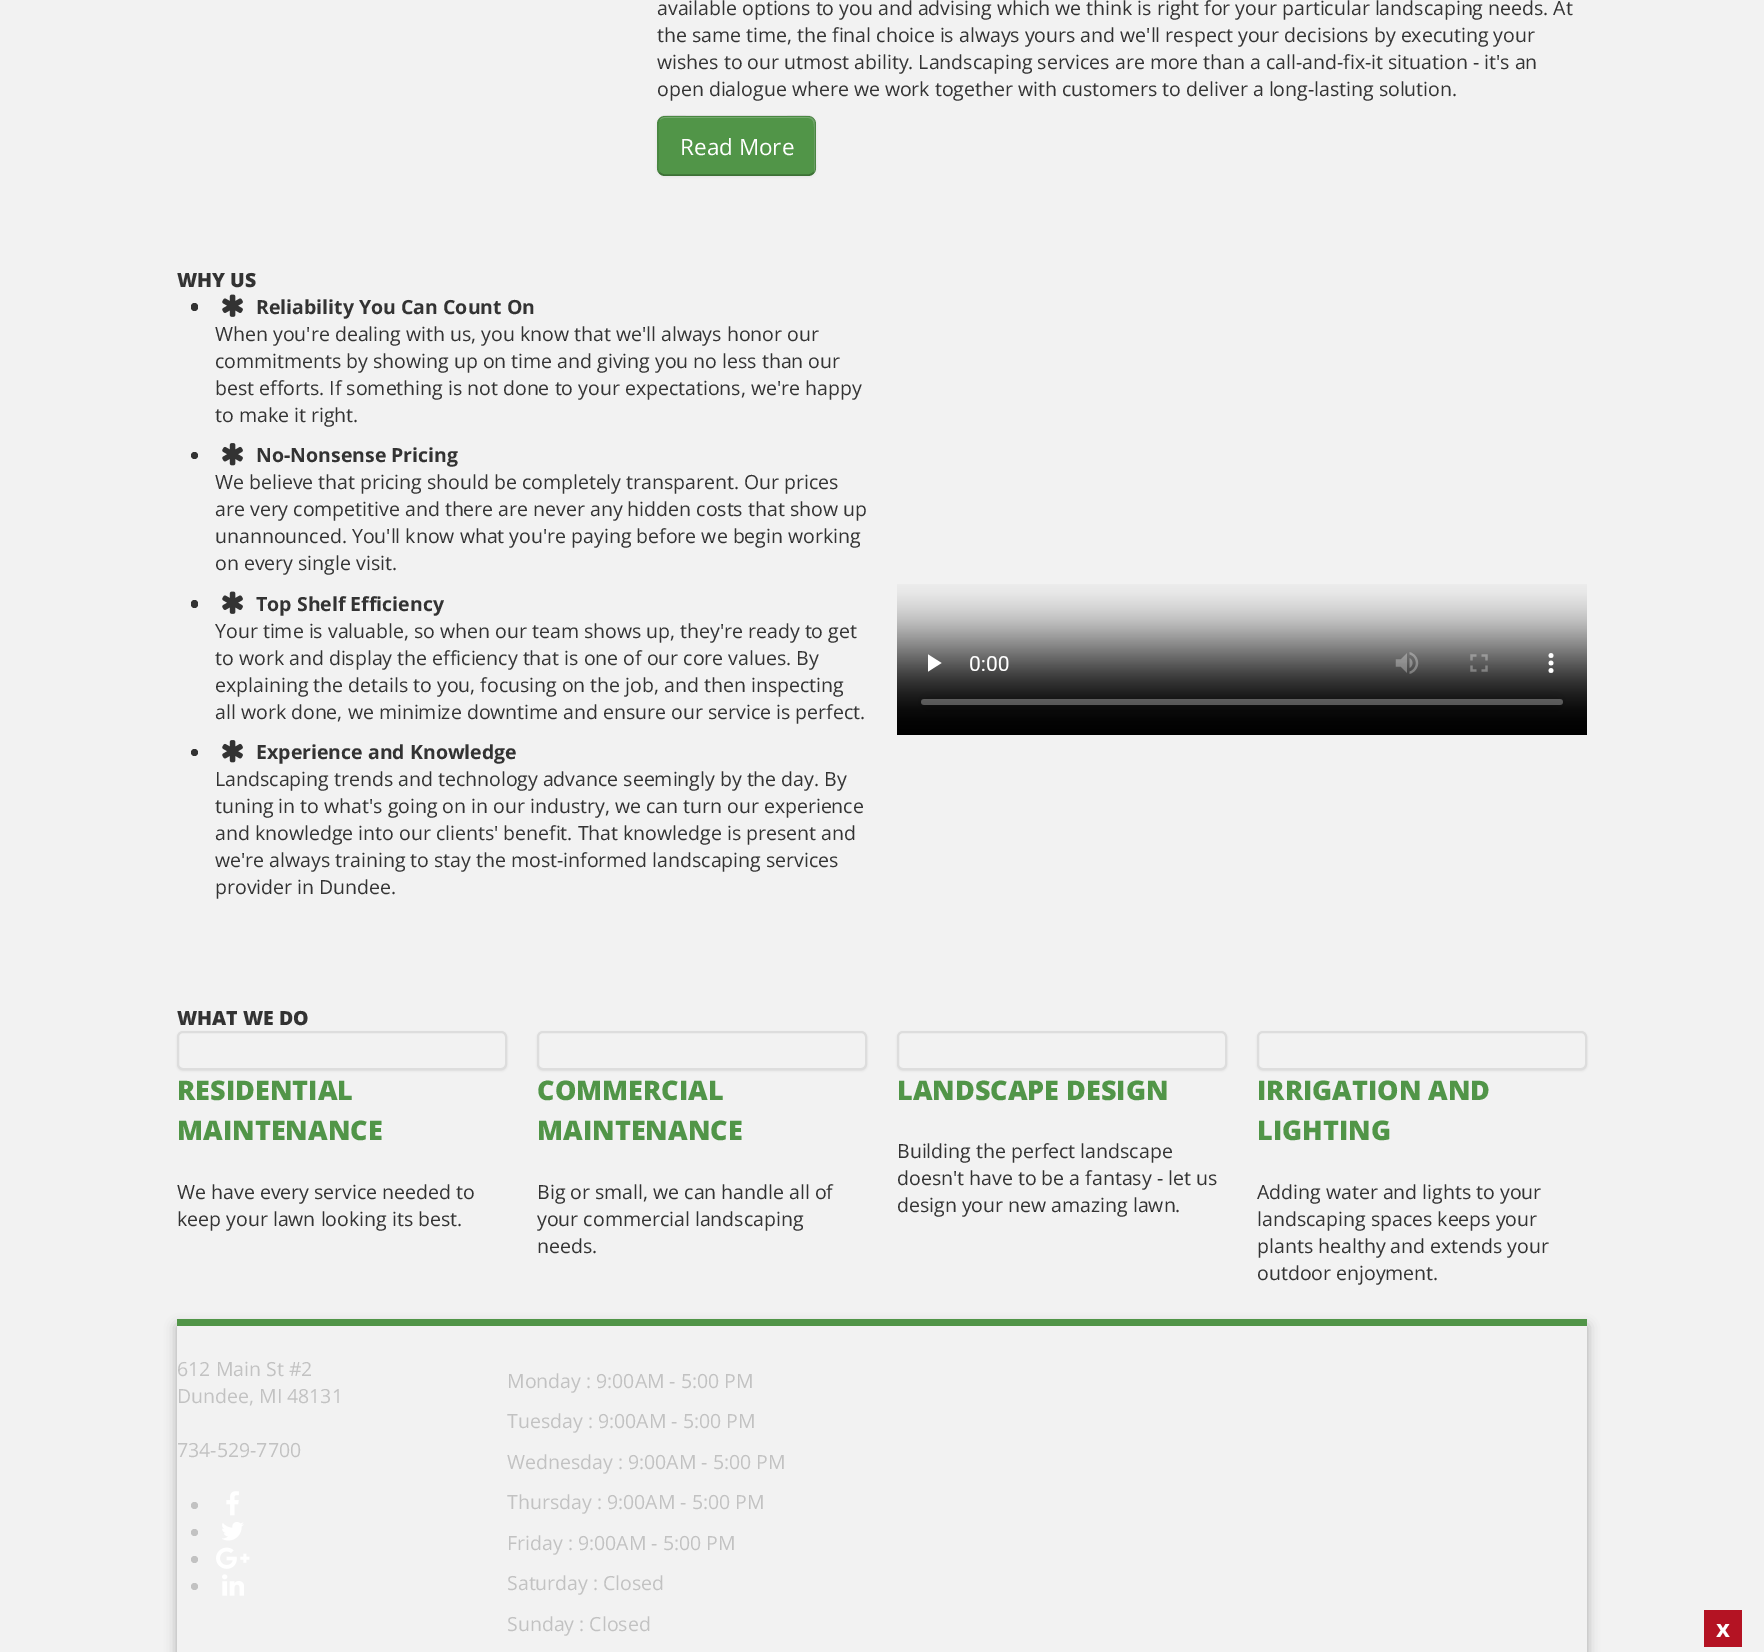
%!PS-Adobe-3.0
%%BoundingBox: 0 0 1764 1652
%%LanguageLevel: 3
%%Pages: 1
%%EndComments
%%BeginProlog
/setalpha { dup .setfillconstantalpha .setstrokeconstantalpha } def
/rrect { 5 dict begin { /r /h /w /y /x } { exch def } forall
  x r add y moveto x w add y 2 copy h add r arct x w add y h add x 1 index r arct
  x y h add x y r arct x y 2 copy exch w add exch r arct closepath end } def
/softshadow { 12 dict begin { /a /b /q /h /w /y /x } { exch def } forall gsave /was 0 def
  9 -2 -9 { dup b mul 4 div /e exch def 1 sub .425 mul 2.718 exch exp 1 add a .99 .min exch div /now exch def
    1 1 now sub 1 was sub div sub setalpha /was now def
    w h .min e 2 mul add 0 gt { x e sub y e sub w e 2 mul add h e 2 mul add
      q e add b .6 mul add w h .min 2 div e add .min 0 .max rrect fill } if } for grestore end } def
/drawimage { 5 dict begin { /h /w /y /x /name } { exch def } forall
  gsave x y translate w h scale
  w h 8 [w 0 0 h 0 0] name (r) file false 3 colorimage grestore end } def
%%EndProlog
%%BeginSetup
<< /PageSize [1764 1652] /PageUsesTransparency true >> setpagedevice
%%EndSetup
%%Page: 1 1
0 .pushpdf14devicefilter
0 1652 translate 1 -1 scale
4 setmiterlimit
0.949 setgray
0 0 1764 1652 rectfill
0 setgray
657 117 159 60 8 1.5 0.05 softshadow
0.318 0.584 0.282 setrgbcolor
657 116 159 60 8 rrect fill
0.455 0.667 0.427 setrgbcolor
newpath 664 118 moveto 808 118 lineto 815 118 814 127 814 132 curveto 814 172 lineto 815 171 815 169 815 168 curveto 815 123 lineto 815 120 812 117 809 117 curveto 665 117 lineto 663 117 661 118 660 120 curveto 661 119 663 118 664 118 curveto closepath fill
0.25 setalpha
0 setgray
1.5 setlinewidth
newpath 813.5 173 moveto 812 174 810.5 175 808.5 175 curveto 664.5 175 lineto 662.5 175 661 174 659.5 173 curveto stroke
0.1 setalpha
newpath 659.5 173 moveto 656.5 169.5 658 164 658 160.5 curveto 658 145.5 lineto 658 111.5 653 116 688.5 116 curveto 784.5 116 lineto 820 116 815 111.5 815 145.5 curveto 815 160.5 lineto 815 164 816.5 169.5 813.5 173 curveto stroke
1 setalpha
0.2 setgray
191 303 7 8 3.5 rrect fill
(images/1.raw) 222 294 21 23 drawimage
newpath 194.5 455.5 3.5 0 360 arc closepath fill
(images/2.raw) 222 443 21 23 drawimage
191 600 7 8 3.5 rrect fill
(images/1.raw) 222 591 21 23 drawimage
newpath 194.5 752.5 3.5 0 360 arc closepath fill
(images/2.raw) 222 740 21 23 drawimage
(images/3.raw) 897 584 690 151 drawimage
gsave
newpath 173 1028 moveto 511 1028 lineto 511 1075 lineto 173 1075 lineto closepath 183 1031 moveto 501 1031 lineto 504.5 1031 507 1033.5 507 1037 curveto 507 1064 lineto 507 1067.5 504.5 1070 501 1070 curveto 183 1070 lineto 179.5 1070 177 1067.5 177 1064 curveto 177 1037 lineto 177 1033.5 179.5 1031 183 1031 curveto closepath eoclip newpath
0 setgray
177 1032 330 39 6 1 0.07 softshadow
grestore
0.867 setgray
2 setlinewidth
178 1032 328 37 5 rrect stroke
gsave
newpath 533 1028 moveto 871 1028 lineto 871 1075 lineto 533 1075 lineto closepath 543 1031 moveto 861 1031 lineto 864.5 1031 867 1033.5 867 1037 curveto 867 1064 lineto 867 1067.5 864.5 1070 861 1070 curveto 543 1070 lineto 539.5 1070 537 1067.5 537 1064 curveto 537 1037 lineto 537 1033.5 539.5 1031 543 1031 curveto closepath eoclip newpath
0 setgray
537 1032 330 39 6 1 0.07 softshadow
grestore
538 1032 328 37 5 rrect stroke
gsave
newpath 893 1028 moveto 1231 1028 lineto 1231 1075 lineto 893 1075 lineto closepath 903 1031 moveto 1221 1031 lineto 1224.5 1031 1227 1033.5 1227 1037 curveto 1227 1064 lineto 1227 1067.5 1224.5 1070 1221 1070 curveto 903 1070 lineto 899.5 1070 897 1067.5 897 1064 curveto 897 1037 lineto 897 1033.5 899.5 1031 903 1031 curveto closepath eoclip newpath
0 setgray
897 1032 330 39 6 1 0.07 softshadow
grestore
898 1032 328 37 5 rrect stroke
gsave
newpath 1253 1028 moveto 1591 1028 lineto 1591 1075 lineto 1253 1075 lineto closepath 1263 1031 moveto 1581 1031 lineto 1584.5 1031 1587 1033.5 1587 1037 curveto 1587 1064 lineto 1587 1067.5 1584.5 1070 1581 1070 curveto 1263 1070 lineto 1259.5 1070 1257 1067.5 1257 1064 curveto 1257 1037 lineto 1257 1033.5 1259.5 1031 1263 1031 curveto closepath eoclip newpath
0 setgray
1257 1032 330 39 6 1 0.07 softshadow
grestore
1258 1032 328 37 5 rrect stroke
gsave
newpath 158 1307 moveto 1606 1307 lineto 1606 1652 lineto 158 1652 lineto closepath 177 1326 moveto 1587 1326 lineto 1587 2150 lineto 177 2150 lineto closepath eoclip newpath
0 setgray
177 1326 1410 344 0 6 0.3 softshadow
grestore
0.318 0.584 0.282 setrgbcolor
177 1319 1410 7 rectfill
0.761 setgray
newpath 194.5 1505.5 3.5 0 360 arc closepath fill
(images/4.raw) 226 1491 13 25 drawimage
newpath 194.5 1532.5 3.5 0 360 arc closepath fill
(images/5.raw) 222 1522 22 19 drawimage
newpath 194.5 1559.5 3.5 0 360 arc closepath fill
(images/6.raw) 216 1547 34 22 drawimage
newpath 194.5 1586.5 3.5 0 360 arc closepath fill
(images/7.raw) 222 1574 22 22 drawimage
0.706 0.075 0.137 setrgbcolor
1704 1610 38 37 rectfill
/OpenSans-Regular [19.5 0 0 -19.5 0 0] selectfont
0.2 setgray
657 15 moveto (available options to you and advising which we think is right for your particular landscaping needs. At) show
657 42 moveto (the same time, the final choice is always yours and we'll respect your decisions by executing your) show
657 69 moveto (wishes to our utmost ability. Landscaping services are more than a call-and-fix-it situation - it's an) show
657 96 moveto (open dialogue where we work together with customers to deliver a long-lasting solution.) show
/OpenSans-Regular [22.5 0 0 -22.5 0 0] selectfont
1 setgray
680 155 moveto (Read More) show
/OpenSans-ExtraBold [19.5 0 0 -19.5 0 0] selectfont
0.2 setgray
177 287 moveto (WHY US) show
/OpenSans-Bold [19.5 0 0 -19.5 0 0] selectfont
256 314 moveto (Reliability You Can Count On) show
/OpenSans-Regular [19.5 0 0 -19.5 0 0] selectfont
215 341 moveto (When you're dealing with us, you know that we'll always honor our) show
215 368 moveto (commitments by showing up on time and giving you no less than our) show
215 395 moveto (best efforts. If something is not done to your expectations, we're happy) show
215 422 moveto (to make it right.) show
/OpenSans-Bold [19.5 0 0 -19.5 0 0] selectfont
256 462 moveto (No-Nonsense Pricing) show
/OpenSans-Regular [19.5 0 0 -19.5 0 0] selectfont
215 489 moveto (We believe that pricing should be completely transparent. Our prices) show
215 516 moveto (are very competitive and there are never any hidden costs that show up) show
215 543 moveto (unannounced. You'll know what you're paying before we begin working) show
215 570 moveto (on every single visit.) show
/OpenSans-Bold [19.5 0 0 -19.5 0 0] selectfont
256 611 moveto (Top Shelf Efficiency) show
/OpenSans-Regular [19.5 0 0 -19.5 0 0] selectfont
215 638 moveto (Your time is valuable, so when our team shows up, they're ready to get) show
215 665 moveto (to work and display the efficiency that is one of our core values. By) show
215 692 moveto (explaining the details to you, focusing on the job, and then inspecting) show
215 719 moveto (all work done, we minimize downtime and ensure our service is perfect.) show
/OpenSans-Bold [19.5 0 0 -19.5 0 0] selectfont
256 759 moveto (Experience and Knowledge) show
/OpenSans-Regular [19.5 0 0 -19.5 0 0] selectfont
215 786 moveto (Landscaping trends and technology advance seemingly by the day. By) show
215 813 moveto (tuning in to what's going on in our industry, we can turn our experience) show
215 840 moveto (and knowledge into our clients' benefit. That knowledge is present and) show
215 867 moveto (we're always training to stay the most-informed landscaping services) show
215 894 moveto (provider in Dundee.) show
/OpenSans-ExtraBold [19.5 0 0 -19.5 0 0] selectfont
177 1025 moveto (WHAT WE DO) show
/OpenSans-ExtraBold [27 0 0 -27 0 0] selectfont
0.318 0.584 0.282 setrgbcolor
177 1100 moveto (RESIDENTIAL) show
177 1140 moveto (MAINTENANCE) show
/OpenSans-Regular [19.5 0 0 -19.5 0 0] selectfont
0.2 setgray
177 1199 moveto (We have every service needed to) show
177 1226 moveto (keep your lawn looking its best.) show
/OpenSans-ExtraBold [27 0 0 -27 0 0] selectfont
0.318 0.584 0.282 setrgbcolor
537 1100 moveto (COMMERCIAL) show
537 1140 moveto (MAINTENANCE) show
/OpenSans-Regular [19.5 0 0 -19.5 0 0] selectfont
0.2 setgray
537 1199 moveto (Big or small, we can handle all of) show
537 1226 moveto (your commercial landscaping) show
537 1253 moveto (needs.) show
/OpenSans-ExtraBold [27 0 0 -27 0 0] selectfont
0.318 0.584 0.282 setrgbcolor
897 1100 moveto (LANDSCAPE DESIGN) show
/OpenSans-Regular [19.5 0 0 -19.5 0 0] selectfont
0.2 setgray
897 1158 moveto (Building the perfect landscape) show
897 1185 moveto (doesn't have to be a fantasy - let us) show
897 1212 moveto (design your new amazing lawn.) show
/OpenSans-ExtraBold [27 0 0 -27 0 0] selectfont
0.318 0.584 0.282 setrgbcolor
1257 1100 moveto (IRRIGATION AND) show
1257 1140 moveto (LIGHTING) show
/OpenSans-Regular [19.5 0 0 -19.5 0 0] selectfont
0.2 setgray
1257 1199 moveto (Adding water and lights to your) show
1257 1226 moveto (landscaping spaces keeps your) show
1257 1253 moveto (plants healthy and extends your) show
1257 1280 moveto (outdoor enjoyment.) show
0.761 setgray
177 1376 moveto (612 Main St #2) show
177 1403 moveto (Dundee, MI 48131) show
177 1457 moveto (734-529-7700) show
507 1388 moveto (Monday : 9:00AM - 5:00 PM) show
507 1428 moveto (Tuesday : 9:00AM - 5:00 PM) show
507 1469 moveto (Wednesday : 9:00AM - 5:00 PM) show
507 1509 moveto (Thursday : 9:00AM - 5:00 PM) show
507 1550 moveto (Friday : 9:00AM - 5:00 PM) show
507 1590 moveto (Saturday : Closed) show
507 1631 moveto (Sunday : Closed) show
/OpenSans-Bold [24 0 0 -24 0 0] selectfont
1 setgray
1716 1637 moveto (x) show
.poppdf14devicefilter showpage
%%EOF
